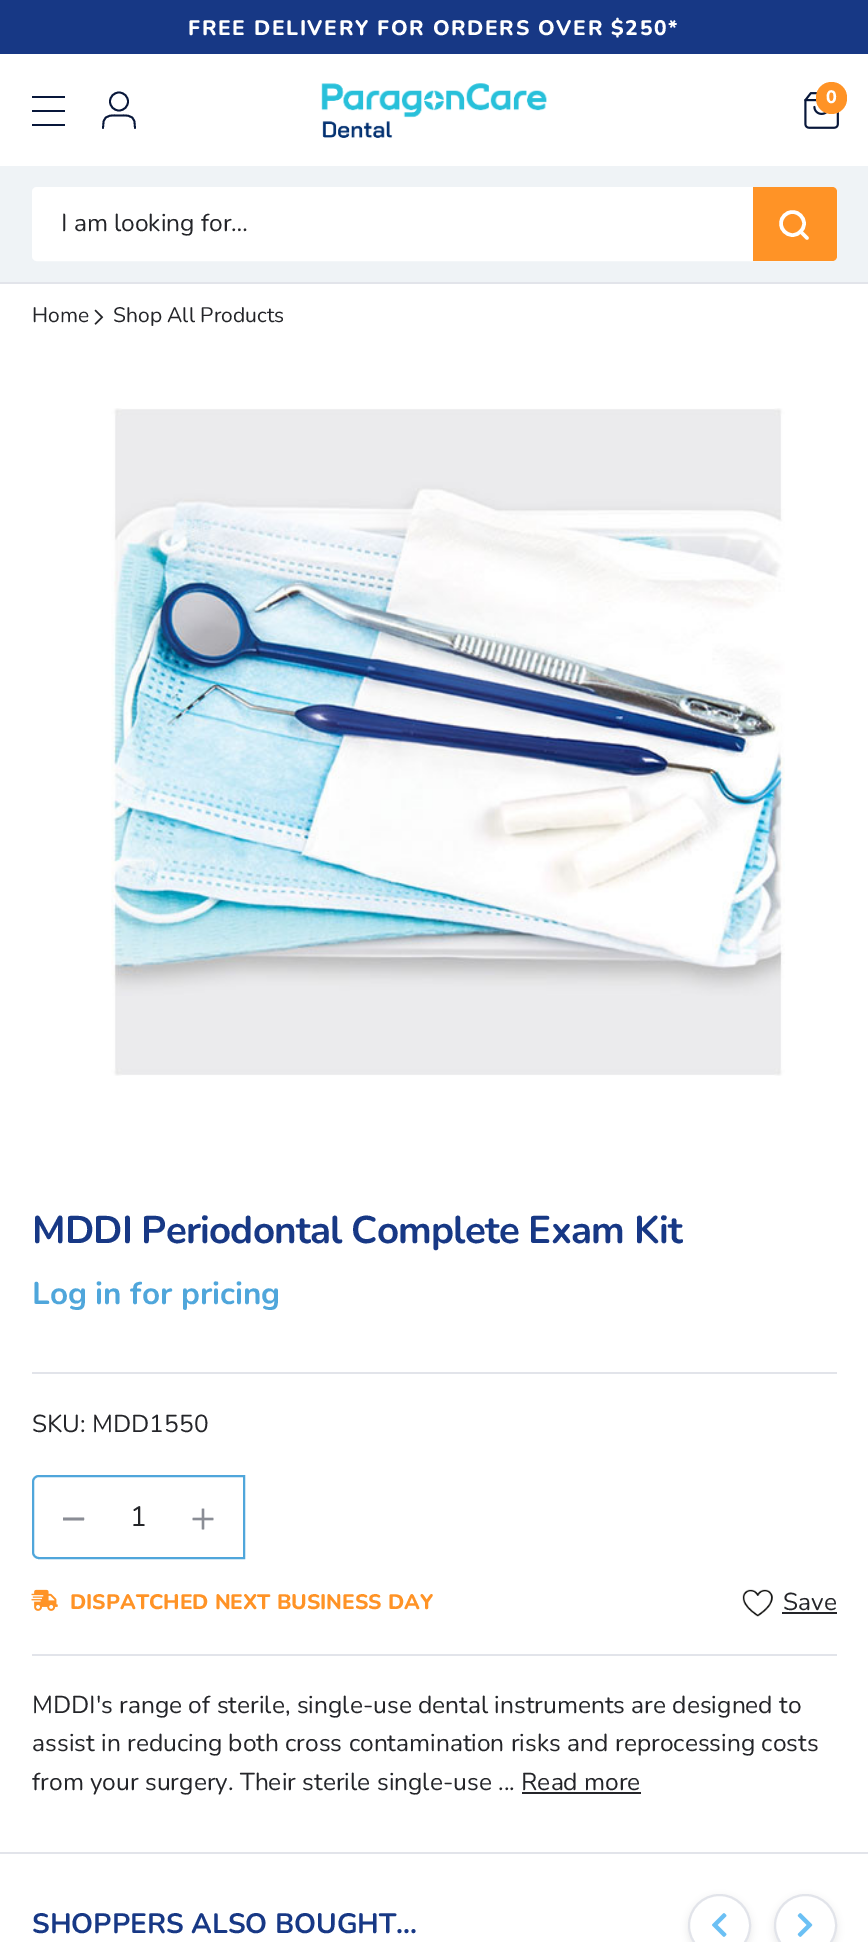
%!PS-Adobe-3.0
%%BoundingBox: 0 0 868 1942
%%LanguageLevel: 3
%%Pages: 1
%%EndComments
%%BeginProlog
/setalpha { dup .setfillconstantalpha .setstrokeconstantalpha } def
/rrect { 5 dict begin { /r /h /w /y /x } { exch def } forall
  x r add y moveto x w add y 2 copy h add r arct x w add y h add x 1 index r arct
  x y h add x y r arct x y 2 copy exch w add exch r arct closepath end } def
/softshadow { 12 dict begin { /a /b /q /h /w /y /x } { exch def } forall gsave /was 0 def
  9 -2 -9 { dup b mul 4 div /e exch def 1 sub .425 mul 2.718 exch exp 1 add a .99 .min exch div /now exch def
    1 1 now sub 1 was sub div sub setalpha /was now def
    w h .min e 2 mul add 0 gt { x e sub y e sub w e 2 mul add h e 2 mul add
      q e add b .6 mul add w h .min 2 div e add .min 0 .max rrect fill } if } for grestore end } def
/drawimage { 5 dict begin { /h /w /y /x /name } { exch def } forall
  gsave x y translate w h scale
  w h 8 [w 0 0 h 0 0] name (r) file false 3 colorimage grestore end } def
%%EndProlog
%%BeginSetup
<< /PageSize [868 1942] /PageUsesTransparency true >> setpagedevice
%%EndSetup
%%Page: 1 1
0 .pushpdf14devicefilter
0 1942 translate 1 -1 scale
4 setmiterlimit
1 setgray
0 0 868 1942 rectfill
0.886 0.894 0.918 setrgbcolor
0 282 868 2 rectfill
0.09 0.22 0.522 setrgbcolor
0 0 868 54 rectfill
gsave
32 96 33 30 rectclip
0.031 0.09 0.227 setrgbcolor
newpath 65 124 moveto 65 126 lineto 31.5 126 lineto 31.5 124 lineto closepath 65 110 moveto 65 112 lineto 31.5 112 lineto 31.5 110 lineto closepath 65 96 moveto 65 98 lineto 31.5 98 lineto 31.5 96 lineto closepath eofill
grestore
0.031 0.09 0.227 setrgbcolor
1.8 setlinewidth
1 setlinecap
1 setlinejoin
newpath 135 128 moveto 134.5 122 lineto 133 114 125 115.5 119 115.5 curveto 113 115.5 105 114 103.5 122 curveto 103 128 lineto stroke
0 setlinecap
0 setlinejoin
newpath 119 101.5 9 0 360 arc closepath stroke
(images/1.raw) 321 83 226 55 drawimage
(images/2.raw) 804 92 35 37 drawimage
1 0.576 0.149 setrgbcolor
816 82 31 32 15.5 rrect fill
0.937 0.953 0.965 setrgbcolor
0 166 868 116 rectfill
1 setgray
33 188 803 72 4 rrect gsave fill grestore
2 setlinewidth
stroke
1 0.576 0.149 setrgbcolor
newpath 753 187 moveto 832 187 lineto 835 187 837 189 837 192 curveto 837 256 lineto 837 259 835 261 832 261 curveto 753 261 lineto closepath fill
1 setgray
3.5 setlinewidth
newpath 792.5 223.5 11.5 0 360 arc closepath stroke
1 setlinecap
1 setlinejoin
newpath 807 238 moveto 800.5 231.5 lineto stroke
(images/3.raw) 94 309 10 16 drawimage
(images/4.raw) 111 408 674 668 drawimage
0.886 0.894 0.918 setrgbcolor
32 1372 805 2 rectfill
0.31 0.651 0.859 setrgbcolor
2 setlinewidth
0 setlinecap
0 setlinejoin
newpath 39 1476 moveto 244 1476 lineto 244 1558 lineto 39 1558 lineto 35.5 1558 33 1555.5 33 1552 curveto 33 1482 lineto 33 1478.5 35.5 1476 39 1476 curveto closepath stroke
0.541 0.553 0.584 setrgbcolor
newpath 83.5 1517.5 moveto 84.5 1517.5 84.5 1520 83.5 1520.5 curveto 63 1520.5 lineto 63 1518 lineto 63 1517.5 lineto closepath fill
(images/5.raw) 192 1508 22 22 drawimage
(images/6.raw) 31 1589 27 22 drawimage
(images/7.raw) 742 1589 31 28 drawimage
0.141 0.145 0.161 setrgbcolor
782 1612 55 2 rectfill
0.886 0.894 0.918 setrgbcolor
32 1654 805 2 rectfill
0.141 0.145 0.161 setrgbcolor
522 1792 119 2 rectfill
0.886 0.894 0.918 setrgbcolor
0 1852 868 2 rectfill
gsave
newpath 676 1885 moveto 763 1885 lineto 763 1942 lineto 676 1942 lineto closepath 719.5 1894 moveto 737 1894 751 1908 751 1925.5 curveto 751 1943 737 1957 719.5 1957 curveto 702 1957 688 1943 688 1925.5 curveto 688 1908 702 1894 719.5 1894 curveto closepath eoclip newpath
0 setgray
688 1897 63 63 31.5 3.5 0.08 softshadow
grestore
newpath 719.5 1925.5 30.5 0 360 arc closepath stroke
(images/8.raw) 712 1913 15 24 drawimage
gsave
newpath 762 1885 moveto 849 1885 lineto 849 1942 lineto 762 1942 lineto closepath 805.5 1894 moveto 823 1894 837 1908 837 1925.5 curveto 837 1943 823 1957 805.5 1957 curveto 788 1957 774 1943 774 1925.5 curveto 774 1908 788 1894 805.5 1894 curveto closepath eoclip newpath
0 setgray
774 1897 63 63 31.5 3.5 0.08 softshadow
grestore
newpath 805.5 1925.5 30.5 0 360 arc closepath stroke
(images/9.raw) 797 1913 16 24 drawimage
/Nunito-ExtraBold [21 0 0 -21 0 0] selectfont
1 setgray
188 35 moveto 1.6 0 (FREE DELIVERY FOR ORDERS OVER $250*) ashow
/Nunito-ExtraBold [18 0 0 -18 0 0] selectfont
826 103 moveto (0) show
/Nunito-Regular [24.5 0 0 -24.5 0 0] selectfont
0.141 0.145 0.161 setrgbcolor
61 231 moveto (I am looking for…) show
/Nunito-Regular [21 0 0 -21 0 0] selectfont
32 322 moveto (Home) show
113 322 moveto (Shop All Products) show
/Nunito-Bold [38.5 0 0 -38.5 0 0] selectfont
0.09 0.22 0.522 setrgbcolor
32 1243 moveto -0.8 0 (MDDI Periodontal Complete Exam Kit) ashow
/Nunito-Bold [31.5 0 0 -31.5 0 0] selectfont
0.31 0.651 0.859 setrgbcolor
32 1304 moveto (Log in for pricing) show
/Nunito-Regular [24.5 0 0 -24.5 0 0] selectfont
0.141 0.145 0.161 setrgbcolor
32 1432 moveto (SKU: MDD1550) show
/Nunito-Regular [28 0 0 -28 0 0] selectfont
130 1526 moveto (1) show
/Nunito-ExtraBold [21 0 0 -21 0 0] selectfont
1 0.576 0.149 setrgbcolor
70 1609 moveto (DISPATCHED NEXT BUSINESS DAY) show
/Nunito-Regular [24.5 0 0 -24.5 0 0] selectfont
0.141 0.145 0.161 setrgbcolor
783 1610 moveto (Save) show
32 1713 moveto (MDDI's range of sterile, single-use dental instruments are designed to) show
32 1751 moveto (assist in reducing both cross contamination risks and reprocessing costs) show
32 1790 moveto (from your surgery. Their sterile single-use ... Read more) show
/Nunito-Bold [28 0 0 -28 0 0] selectfont
0.09 0.22 0.522 setrgbcolor
32 1933 moveto (SHOPPERS ALSO BOUGHT...) show
.poppdf14devicefilter showpage
%%EOF
